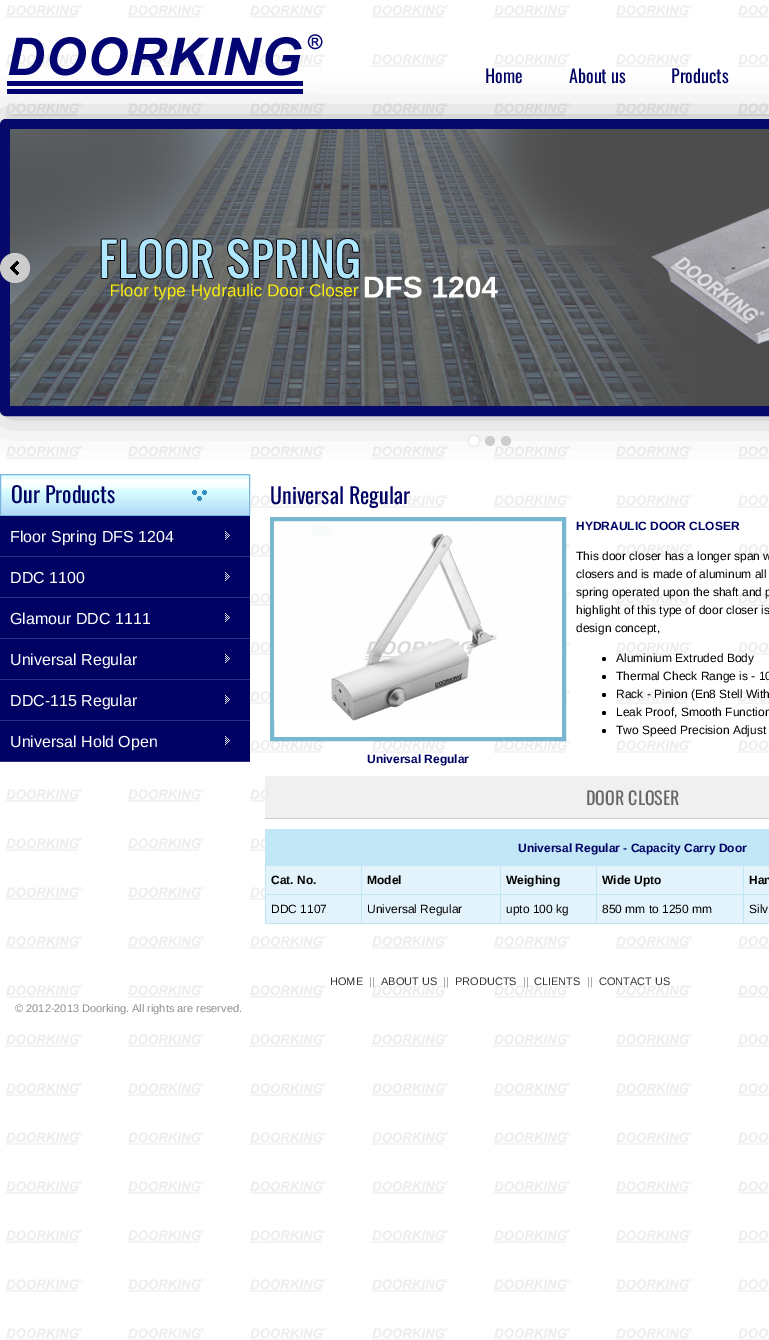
%!PS-Adobe-3.0
%%BoundingBox: 0 0 769 1340
%%LanguageLevel: 3
%%Pages: 1
%%EndComments
%%BeginProlog
/setalpha { dup .setfillconstantalpha .setstrokeconstantalpha } def
/rrect { 5 dict begin { /r /h /w /y /x } { exch def } forall
  x r add y moveto x w add y 2 copy h add r arct x w add y h add x 1 index r arct
  x y h add x y r arct x y 2 copy exch w add exch r arct closepath end } def
/softshadow { 12 dict begin { /a /b /q /h /w /y /x } { exch def } forall gsave /was 0 def
  9 -2 -9 { dup b mul 4 div /e exch def 1 sub .425 mul 2.718 exch exp 1 add a .99 .min exch div /now exch def
    1 1 now sub 1 was sub div sub setalpha /was now def
    w h .min e 2 mul add 0 gt { x e sub y e sub w e 2 mul add h e 2 mul add
      q e add b .6 mul add w h .min 2 div e add .min 0 .max rrect fill } if } for grestore end } def
/drawimage { 5 dict begin { /h /w /y /x /name } { exch def } forall
  gsave x y translate w h scale
  w h 8 [w 0 0 h 0 0] name (r) file false 3 colorimage grestore end } def
%%EndProlog
%%BeginSetup
<< /PageSize [769 1340] /PageUsesTransparency true >> setpagedevice
%%EndSetup
%%Page: 1 1
0 .pushpdf14devicefilter
0 1340 translate 1 -1 scale
4 setmiterlimit
1 setgray
0 0 769 1340 rectfill
(images/1.raw) 5 5 764 1335 drawimage
0 setgray
0 119 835 297 6 20 0.3 softshadow
0.027 0.035 0.42 setrgbcolor
10 setlinewidth
5 124 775 287 1 rrect stroke
(images/2.raw) 10 129 759 277 drawimage
0.8 setgray
newpath 15 268 15 0 360 arc closepath fill
(images/3.raw) 10 261 9 14 drawimage
0 setgray
469 436 10 10 5 1 0.2 softshadow
1 setgray
newpath 474 441 5 0 360 arc closepath fill
0.8 setgray
newpath 490 441 5 0 360 arc closepath fill
newpath 506 441 5 0 360 arc closepath fill
(images/4.raw) 7 34 316 60 drawimage
(images/5.raw) 1 475 248 40 drawimage
0.49 0.71 0.871 setrgbcolor
1 setlinewidth
0.5 474.5 249 41 rectstroke
(images/6.raw) 192 490 15 11 drawimage
0 0.008 0.388 setrgbcolor
0 516 250 40 rectfill
(images/7.raw) 225 531 5 9 drawimage
0.169 0.176 0.545 setrgbcolor
0 556 250 1 rectfill
0 0.008 0.388 setrgbcolor
0 557 250 40 rectfill
(images/7.raw) 225 572 5 9 drawimage
0.169 0.176 0.545 setrgbcolor
0 597 250 1 rectfill
0 0.008 0.388 setrgbcolor
0 598 250 40 rectfill
(images/7.raw) 225 613 5 9 drawimage
0.169 0.176 0.545 setrgbcolor
0 638 250 1 rectfill
0 0.008 0.388 setrgbcolor
0 639 250 40 rectfill
(images/7.raw) 225 654 5 9 drawimage
0.169 0.176 0.545 setrgbcolor
0 679 250 1 rectfill
0 0.008 0.388 setrgbcolor
0 680 250 40 rectfill
(images/7.raw) 225 695 5 9 drawimage
0.169 0.176 0.545 setrgbcolor
0 720 250 1 rectfill
0 0.008 0.388 setrgbcolor
0 721 250 40 rectfill
(images/7.raw) 225 736 5 9 drawimage
0.169 0.176 0.545 setrgbcolor
0 761 250 1 rectfill
0 setgray
newpath 604 659 2 0 360 arc closepath fill
newpath 604 677 2 0 360 arc closepath fill
newpath 604 695 2 0 360 arc closepath fill
newpath 604 713 2 0 360 arc closepath fill
newpath 604 731 2 0 360 arc closepath fill
0.467 0.718 0.816 setrgbcolor
4 setlinewidth
272 519 292 220 rectstroke
(images/8.raw) 274 523 288 198 drawimage
0.941 setgray
265 776 504 42 rectfill
0.8 setgray
265 818 504 1 rectfill
0.757 0.902 0.965 setrgbcolor
265 829 504 95 rectfill
0.89 0.953 0.984 setrgbcolor
266 866 95 28 rectfill
362 866 138 28 rectfill
501 866 95 28 rectfill
597 866 146 28 rectfill
744 866 25 28 rectfill
266 895 95 28 rectfill
362 895 138 28 rectfill
501 895 95 28 rectfill
597 895 146 28 rectfill
744 895 25 28 rectfill
/Oswald-Regular [18 0 0 -18 0 0] selectfont
0 0.008 0.388 setrgbcolor
485 83 moveto (Home) show
569 83 moveto (About us) show
671 83 moveto (Products) show
/Oswald-Regular [22 0 0 -22 0 0] selectfont
11 503 moveto (Our Products) show
/LiberationSans-Regular [16 0 0 -16 0 0] selectfont
1 setgray
10 542 moveto (Floor Spring DFS 1204) show
10 583 moveto (DDC 1100) show
10 624 moveto (Glamour DDC 1111) show
10 665 moveto (Universal Regular) show
10 706 moveto (DDC-115 Regular) show
10 747 moveto (Universal Hold Open) show
/Oswald-Regular [22 0 0 -22 0 0] selectfont
0 0.008 0.388 setrgbcolor
270 504 moveto (Universal Regular) show
/LiberationSans-Bold [12 0 0 -12 0 0] selectfont
576 530 moveto (HYDRAULIC DOOR CLOSER) show
/LiberationSans-Regular [12 0 0 -12 0 0] selectfont
0 setgray
576 560 moveto (This door closer has a longer span w) show
576 578 moveto (closers and is made of aluminum all) show
576 596 moveto (spring operated upon the shaft and p) show
576 614 moveto (highlight of this type of door closer is) show
576 632 moveto (design concept,) show
616 662 moveto (Aluminium Extruded Body) show
616 680 moveto (Thermal Check Range is - 10) show
616 698 moveto (Rack - Pinion \(En8 Stell With) show
616 716 moveto (Leak Proof, Smooth Function) show
616 734 moveto (Two Speed Precision Adjust) show
/LiberationSans-Bold [12 0 0 -12 0 0] selectfont
0 0.008 0.388 setrgbcolor
367 763 moveto (Universal Regular) show
/Oswald-Regular [18 0 0 -18 0 0] selectfont
0.4 setgray
586 805 moveto (DOOR CLOSER) show
/LiberationSans-Bold [12 0 0 -12 0 0] selectfont
0 0.008 0.388 setrgbcolor
518 852 moveto (Universal Regular - Capacity Carry Door) show
0 setgray
271 884 moveto (Cat. No.) show
367 884 moveto (Model) show
506 884 moveto (Weighing) show
602 884 moveto (Wide Upto) show
749 884 moveto (Han) show
/LiberationSans-Regular [12 0 0 -12 0 0] selectfont
271 913 moveto (DDC 1107) show
367 913 moveto (Universal Regular) show
506 913 moveto (upto 100 kg) show
602 913 moveto (850 mm to 1250 mm) show
749 913 moveto (Silv) show
/LiberationSans-Regular [11 0 0 -11 0 0] selectfont
0.2 setgray
330 985 moveto (HOME) show
0.553 setgray
369 985 moveto (||) show
0.2 setgray
381 985 moveto (ABOUT US) show
0.553 setgray
443 985 moveto (||) show
0.2 setgray
455 985 moveto (PRODUCTS) show
0.553 setgray
523 985 moveto (||) show
0.2 setgray
534 985 moveto (CLIENTS) show
0.553 setgray
587 985 moveto (||) show
0.2 setgray
599 985 moveto (CONTACT US) show
0.553 setgray
15 1012 moveto (© 2012-2013 Doorking. All rights are reserved.) show
.poppdf14devicefilter showpage
%%EOF
